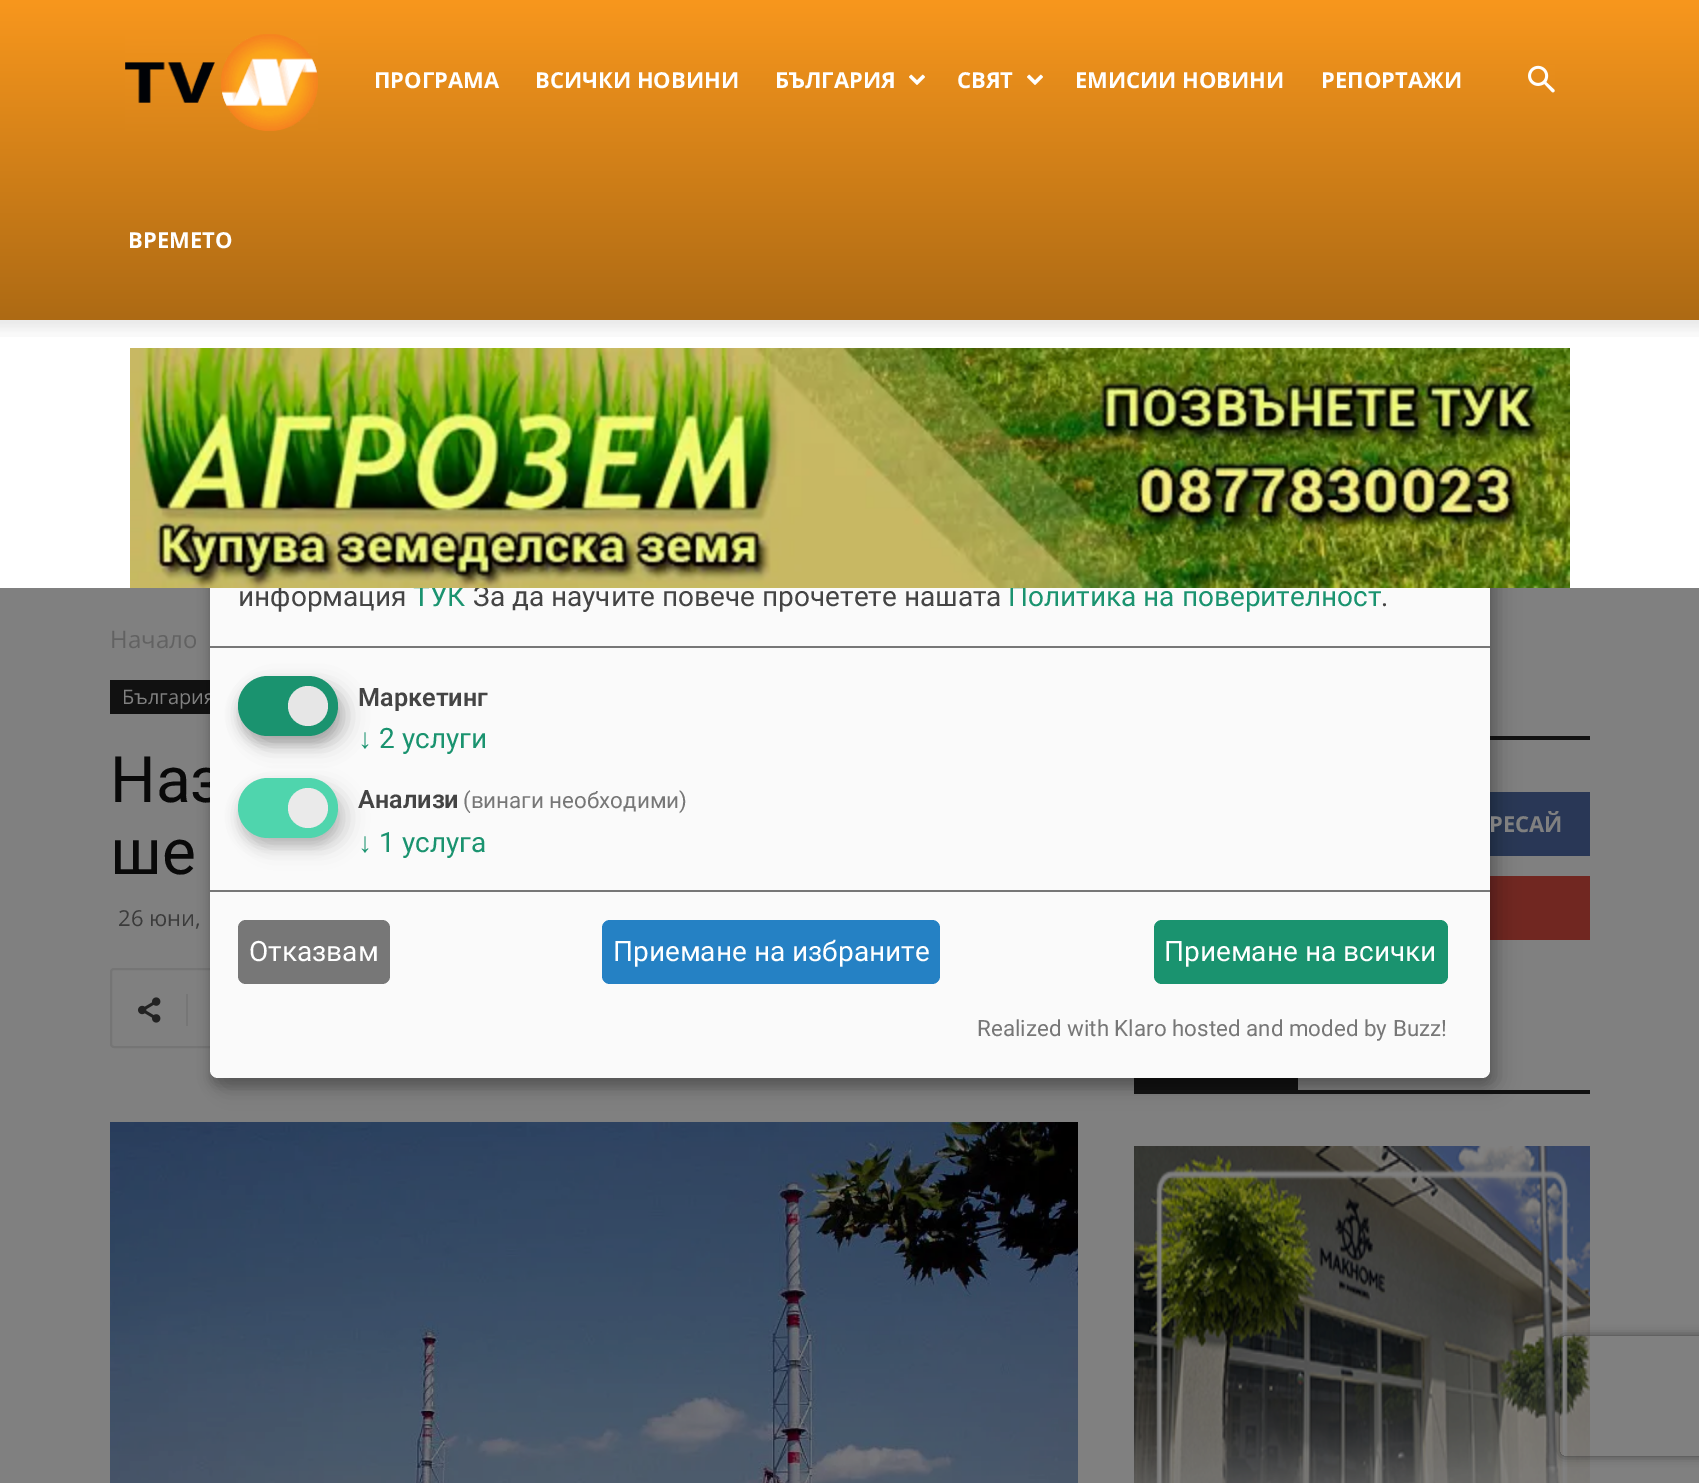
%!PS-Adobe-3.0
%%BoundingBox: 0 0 1699 1483
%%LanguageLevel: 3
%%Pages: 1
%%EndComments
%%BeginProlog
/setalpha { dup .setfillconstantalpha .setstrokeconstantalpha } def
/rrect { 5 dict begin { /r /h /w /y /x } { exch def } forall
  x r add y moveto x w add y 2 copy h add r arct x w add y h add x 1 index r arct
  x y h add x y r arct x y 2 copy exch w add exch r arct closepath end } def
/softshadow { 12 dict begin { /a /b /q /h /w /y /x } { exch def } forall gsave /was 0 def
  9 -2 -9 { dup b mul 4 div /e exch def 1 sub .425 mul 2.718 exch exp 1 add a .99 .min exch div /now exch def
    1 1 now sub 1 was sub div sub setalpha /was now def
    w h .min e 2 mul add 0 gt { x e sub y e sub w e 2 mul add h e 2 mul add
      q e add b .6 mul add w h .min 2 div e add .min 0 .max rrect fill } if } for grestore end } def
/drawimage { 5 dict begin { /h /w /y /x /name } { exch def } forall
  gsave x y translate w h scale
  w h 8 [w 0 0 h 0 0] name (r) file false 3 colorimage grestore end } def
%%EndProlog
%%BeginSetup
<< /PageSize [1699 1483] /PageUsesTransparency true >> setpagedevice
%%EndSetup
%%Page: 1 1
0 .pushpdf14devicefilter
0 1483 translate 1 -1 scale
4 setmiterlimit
0.502 setgray
0 0 1699 1483 rectfill
gsave newpath 0 0 moveto 1699 0 lineto 1699 320 lineto 0 320 lineto closepath clip newpath
<< /ShadingType 2 /ColorSpace /DeviceRGB /Coords [850 0 850 320] /Extend [true true] /Function << /FunctionType 2 /Domain [0 1] /C0 [0.973 0.592 0.114] /C1 [0.678 0.416 0.078] /N 1 >> >> shfill grestore
(images/1.raw) 125 34 193 97 drawimage
(images/2.raw) 909 74 16 11 drawimage
(images/2.raw) 1027 74 16 11 drawimage
(images/3.raw) 1528 65 27 28 drawimage
0.067 setgray
110 680 100 34 rectfill
0.459 setgray
2 setlinewidth
111 969 234 78 3 rrect stroke
(images/6.raw) 138 997 23 26 drawimage
0.463 setgray
186 994 2 32 rectfill
(images/7.raw) 110 1122 968 361 drawimage
0.067 setgray
1490 736 100 4 rectfill
0.161 0.216 0.337 setrgbcolor
1490 792 100 64 rectfill
0.443 0.153 0.129 setrgbcolor
1490 876 100 64 rectfill
0.067 setgray
1134 1090 456 4 rectfill
1134 1078 164 12 rectfill
(images/8.raw) 1134 1146 456 337 drawimage
0 setgray
220 416 1280 672 8 10 0.19 softshadow
210 414 1280 672 8 6 0.2 softshadow
gsave
newpath 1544 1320 moveto 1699 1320 lineto 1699 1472 lineto 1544 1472 lineto closepath 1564 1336 moveto 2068 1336 lineto 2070 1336 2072 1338 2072 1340 curveto 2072 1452 lineto 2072 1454 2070 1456 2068 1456 curveto 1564 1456 lineto 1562 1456 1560 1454 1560 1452 curveto 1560 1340 lineto 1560 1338 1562 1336 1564 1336 curveto closepath eoclip newpath
0.251 setgray
1560 1336 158 120 4 5 1 softshadow
grestore
/OpenSans-Bold [22 0 0 -22 0 0] selectfont
1 setgray
374 88 moveto (ПРОГРАМА) show
535 88 moveto (ВСИЧКИ НОВИНИ) show
775 88 moveto (БЪЛГАРИЯ) show
957 88 moveto (СВЯТ) show
1075 88 moveto (ЕМИСИИ НОВИНИ) show
1321 88 moveto (РЕПОРТАЖИ) show
128 248 moveto (ВРЕМЕТО) show
/OpenSans-Regular [24 0 0 -24 0 0] selectfont
0.384 setgray
110 648 moveto (Начало) show
/OpenSans-Regular [20 0 0 -20 0 0] selectfont
0.502 setgray
122 704 moveto (България) show
/Roboto-Regular [64 0 0 -64 0 0] selectfont
0.035 setgray
110 802 moveto (Наз) show
110 874 moveto (ше) show
/OpenSans-Regular [22 0 0 -22 0 0] selectfont
0.231 setgray
118 926 moveto (26 юни,) show
/OpenSans-Bold [22 0 0 -22 0 0] selectfont
0.502 setgray
1489 832 moveto (РЕСАЙ) show
0.98 setgray
210 406 1280 672 8 rrect fill
0.467 setgray
210 646 1280 2 rectfill
/Roboto-Regular [28 0 0 -28 0 0] selectfont
0.267 setgray
238 606 moveto (информация) show
0.102 0.576 0.435 setrgbcolor
413 606 moveto (ТУК) show
0.267 setgray
473 606 moveto (За да научите повече прочетете нашата) show
0.102 0.576 0.435 setrgbcolor
1008 606 moveto (Политика на поверителност) show
1 setgray
0 320 1699 268 rectfill
(images/4.raw) 0 320 1699 17 drawimage
(images/5.raw) 130 348 1440 240 drawimage
0.267 setgray
1381 606 moveto (.) show
0 setgray
248 686 100 60 30 10 0.19 softshadow
238 684 100 60 30 6 0.2 softshadow
0.102 0.576 0.435 setrgbcolor
238 676 100 60 30 rrect fill
0.902 setgray
newpath 308 706 20 0 360 arc closepath fill
/Roboto-SemiBold [25.25 0 0 -25.25 0 0] selectfont
0.267 setgray
358 706 moveto (Маркетинг) show
/LiberationSans-Regular [28 0 0 -28 0 0] selectfont
0.102 0.576 0.435 setrgbcolor
358 748 moveto (↓) show
/Roboto-Regular [28 0 0 -28 0 0] selectfont
379 748 moveto (2 услуги) show
0 setgray
248 788 100 60 30 10 0.15 softshadow
0.196 setgray
238 786 100 60 30 6 0.2 softshadow
0.31 0.835 0.678 setrgbcolor
238 778 100 60 30 rrect fill
0.918 setgray
newpath 308 808 20 0 360 arc closepath fill
/Roboto-SemiBold [25.25 0 0 -25.25 0 0] selectfont
0.267 setgray
358 808 moveto (Анализи) show
/Roboto-Regular [22.4 0 0 -22.4 0 0] selectfont
0.467 setgray
463 808 moveto (\(винаги необходими\)) show
/LiberationSans-Regular [28 0 0 -28 0 0] selectfont
0.102 0.576 0.435 setrgbcolor
358 852 moveto (↓) show
/Roboto-Regular [28 0 0 -28 0 0] selectfont
379 852 moveto (1 услуга) show
0.467 setgray
210 890 1280 2 rectfill
238 920 152 64 8 rrect fill
1 setgray
249 961 moveto (Отказвам) show
0.145 0.506 0.769 setrgbcolor
602 920 338 64 8 rrect fill
1 setgray
613 961 moveto (Приемане на избраните) show
0.102 0.576 0.435 setrgbcolor
1154 920 294 64 8 rrect fill
1 setgray
1164 961 moveto (Приемане на всички) show
/Roboto-Regular [22.4 0 0 -22.4 0 0] selectfont
0.467 setgray
977 1036 moveto (Realized with Klaro hosted and moded by Buzz!) show
.poppdf14devicefilter showpage
%%EOF
